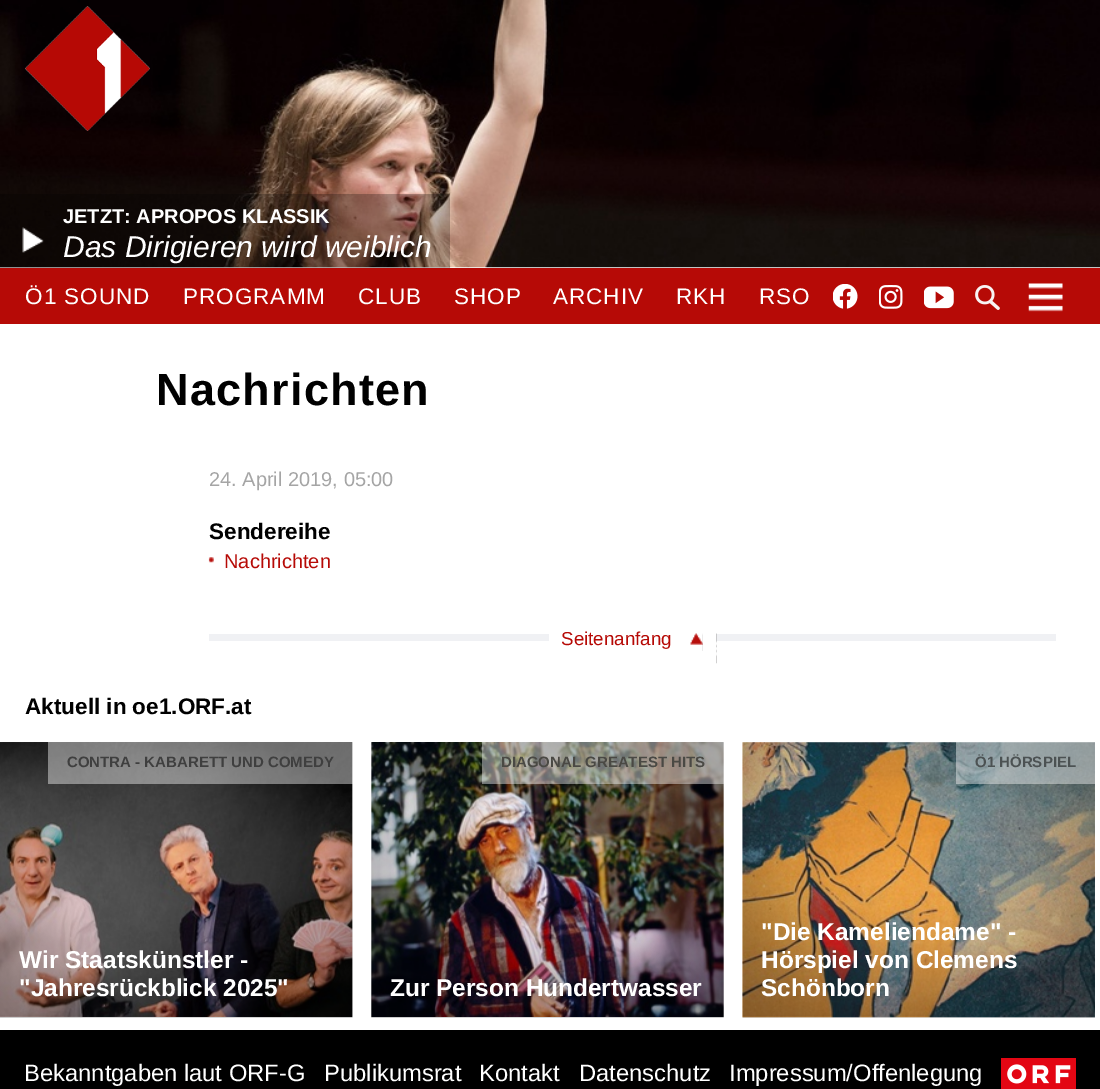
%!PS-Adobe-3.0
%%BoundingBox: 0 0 1100 1089
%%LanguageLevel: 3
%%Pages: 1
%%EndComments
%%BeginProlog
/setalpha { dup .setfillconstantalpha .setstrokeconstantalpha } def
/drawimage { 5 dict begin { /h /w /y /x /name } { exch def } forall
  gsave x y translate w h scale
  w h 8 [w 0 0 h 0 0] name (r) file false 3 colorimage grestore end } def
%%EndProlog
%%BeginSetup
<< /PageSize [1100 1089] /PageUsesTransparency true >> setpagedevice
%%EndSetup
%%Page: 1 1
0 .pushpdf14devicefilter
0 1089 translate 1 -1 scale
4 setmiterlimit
1 setgray
0 0 1100 1089 rectfill
(images/2.raw) 0 0 1100 268 drawimage
(images/1.raw) 25 6 125 125 drawimage
0.25 setalpha
0 setgray
0 194 450 74 rectfill
1 setalpha
(images/3.raw) 22 227 22 26 drawimage
0.714 0.039 0.024 setrgbcolor
0 268 1100 56 rectfill
(images/4.raw) 833 284 25 25 drawimage
(images/5.raw) 879 285 24 24 drawimage
(images/6.raw) 924 286 30 23 drawimage
(images/7.raw) 975 285 25 25 drawimage
(images/8.raw) 1028 283 35 29 drawimage
(images/9.raw) 208 557 6 6 drawimage
0.941 0.945 0.957 setrgbcolor
209 634 847 7 rectfill
1 setgray
562 634 141 7 rectfill
(images/10.raw) 690 633 27 31 drawimage
13 setlinewidth
555.5 619.5 154 38 rectstroke
(images/11.raw) 0 742 353 275 drawimage
(images/12.raw) 0 742 353 276 drawimage
0.42 setalpha
48 742 305 42 rectfill
1 setalpha
(images/13.raw) 371 742 353 275 drawimage
(images/14.raw) 371 742 353 276 drawimage
0.42 setalpha
482 742 242 42 rectfill
1 setalpha
(images/15.raw) 742 742 353 276 drawimage
(images/16.raw) 742 742 353 276 drawimage
0.42 setalpha
956 742 139 42 rectfill
1 setalpha
0 setgray
0 1030 1100 59 rectfill
(images/17.raw) 1001 1058 75 31 drawimage
/LiberationSans-Bold [20 0 0 -20 0 0] selectfont
1 setgray
63 223 moveto (JETZT: APROPOS KLASSIK) show
/LiberationSans-Italic [30 0 0 -30 0 0] selectfont
63 257 moveto (Das Dirigieren wird weiblich) show
/LiberationSans-Regular [22.5 0 0 -22.5 0 0] selectfont
25 304 moveto 1 0 (Ö1 SOUND) ashow
183 304 moveto 1 0 (PROGRAMM) ashow
358 304 moveto 1 0 (CLUB) ashow
454 304 moveto 1 0 (SHOP) ashow
553 304 moveto 1 0 (ARCHIV) ashow
676 304 moveto 1 0 (RKH) ashow
759 304 moveto 1 0 (RSO) ashow
/LiberationSans-Bold [45 0 0 -45 0 0] selectfont
0 setgray
156 405 moveto 1.25 0 (Nachrichten) ashow
/LiberationSans-Regular [20 0 0 -20 0 0] selectfont
0.647 setgray
209 486 moveto (24. April 2019, 05:00) show
/LiberationSans-Bold [22.5 0 0 -22.5 0 0] selectfont
0 setgray
209 539 moveto (Sendereihe) show
/LiberationSans-Regular [20 0 0 -20 0 0] selectfont
0.714 0.039 0.024 setrgbcolor
224 568 moveto (Nachrichten) show
/LiberationSans-Regular [18.75 0 0 -18.75 0 0] selectfont
561 645 moveto (Seitenanfang) show
/LiberationSans-Bold [22.5 0 0 -22.5 0 0] selectfont
0 setgray
25 714 moveto (Aktuell in oe1.ORF.at) show
/LiberationSans-Bold [15 0 0 -15 0 0] selectfont
0.247 setgray
67 767 moveto (CONTRA - KABARETT UND COMEDY) show
/LiberationSans-Bold [24.4 0 0 -24.4 0 0] selectfont
1 setgray
19 968 moveto (Wir Staatskünstler -) show
19 996 moveto ("Jahresrückblick 2025") show
/LiberationSans-Bold [15 0 0 -15 0 0] selectfont
0.29 0.286 0.267 setrgbcolor
501 767 moveto (DIAGONAL GREATEST HITS) show
/LiberationSans-Bold [24.4 0 0 -24.4 0 0] selectfont
1 setgray
390 996 moveto (Zur Person Hundertwasser) show
/LiberationSans-Bold [15 0 0 -15 0 0] selectfont
0.298 0.322 0.325 setrgbcolor
975 767 moveto (Ö1 HÖRSPIEL) show
/LiberationSans-Bold [24.4 0 0 -24.4 0 0] selectfont
1 setgray
761 940 moveto ("Die Kameliendame" -) show
761 968 moveto (Hörspiel von Clemens) show
761 996 moveto (Schönborn) show
/LiberationSans-Regular [23.75 0 0 -23.75 0 0] selectfont
24 1081 moveto (Bekanntgaben laut ORF-G) show
324 1081 moveto (Publikumsrat) show
479 1081 moveto (Kontakt) show
579 1081 moveto (Datenschutz) show
729 1081 moveto (Impressum/Offenlegung) show
.poppdf14devicefilter showpage
%%EOF
